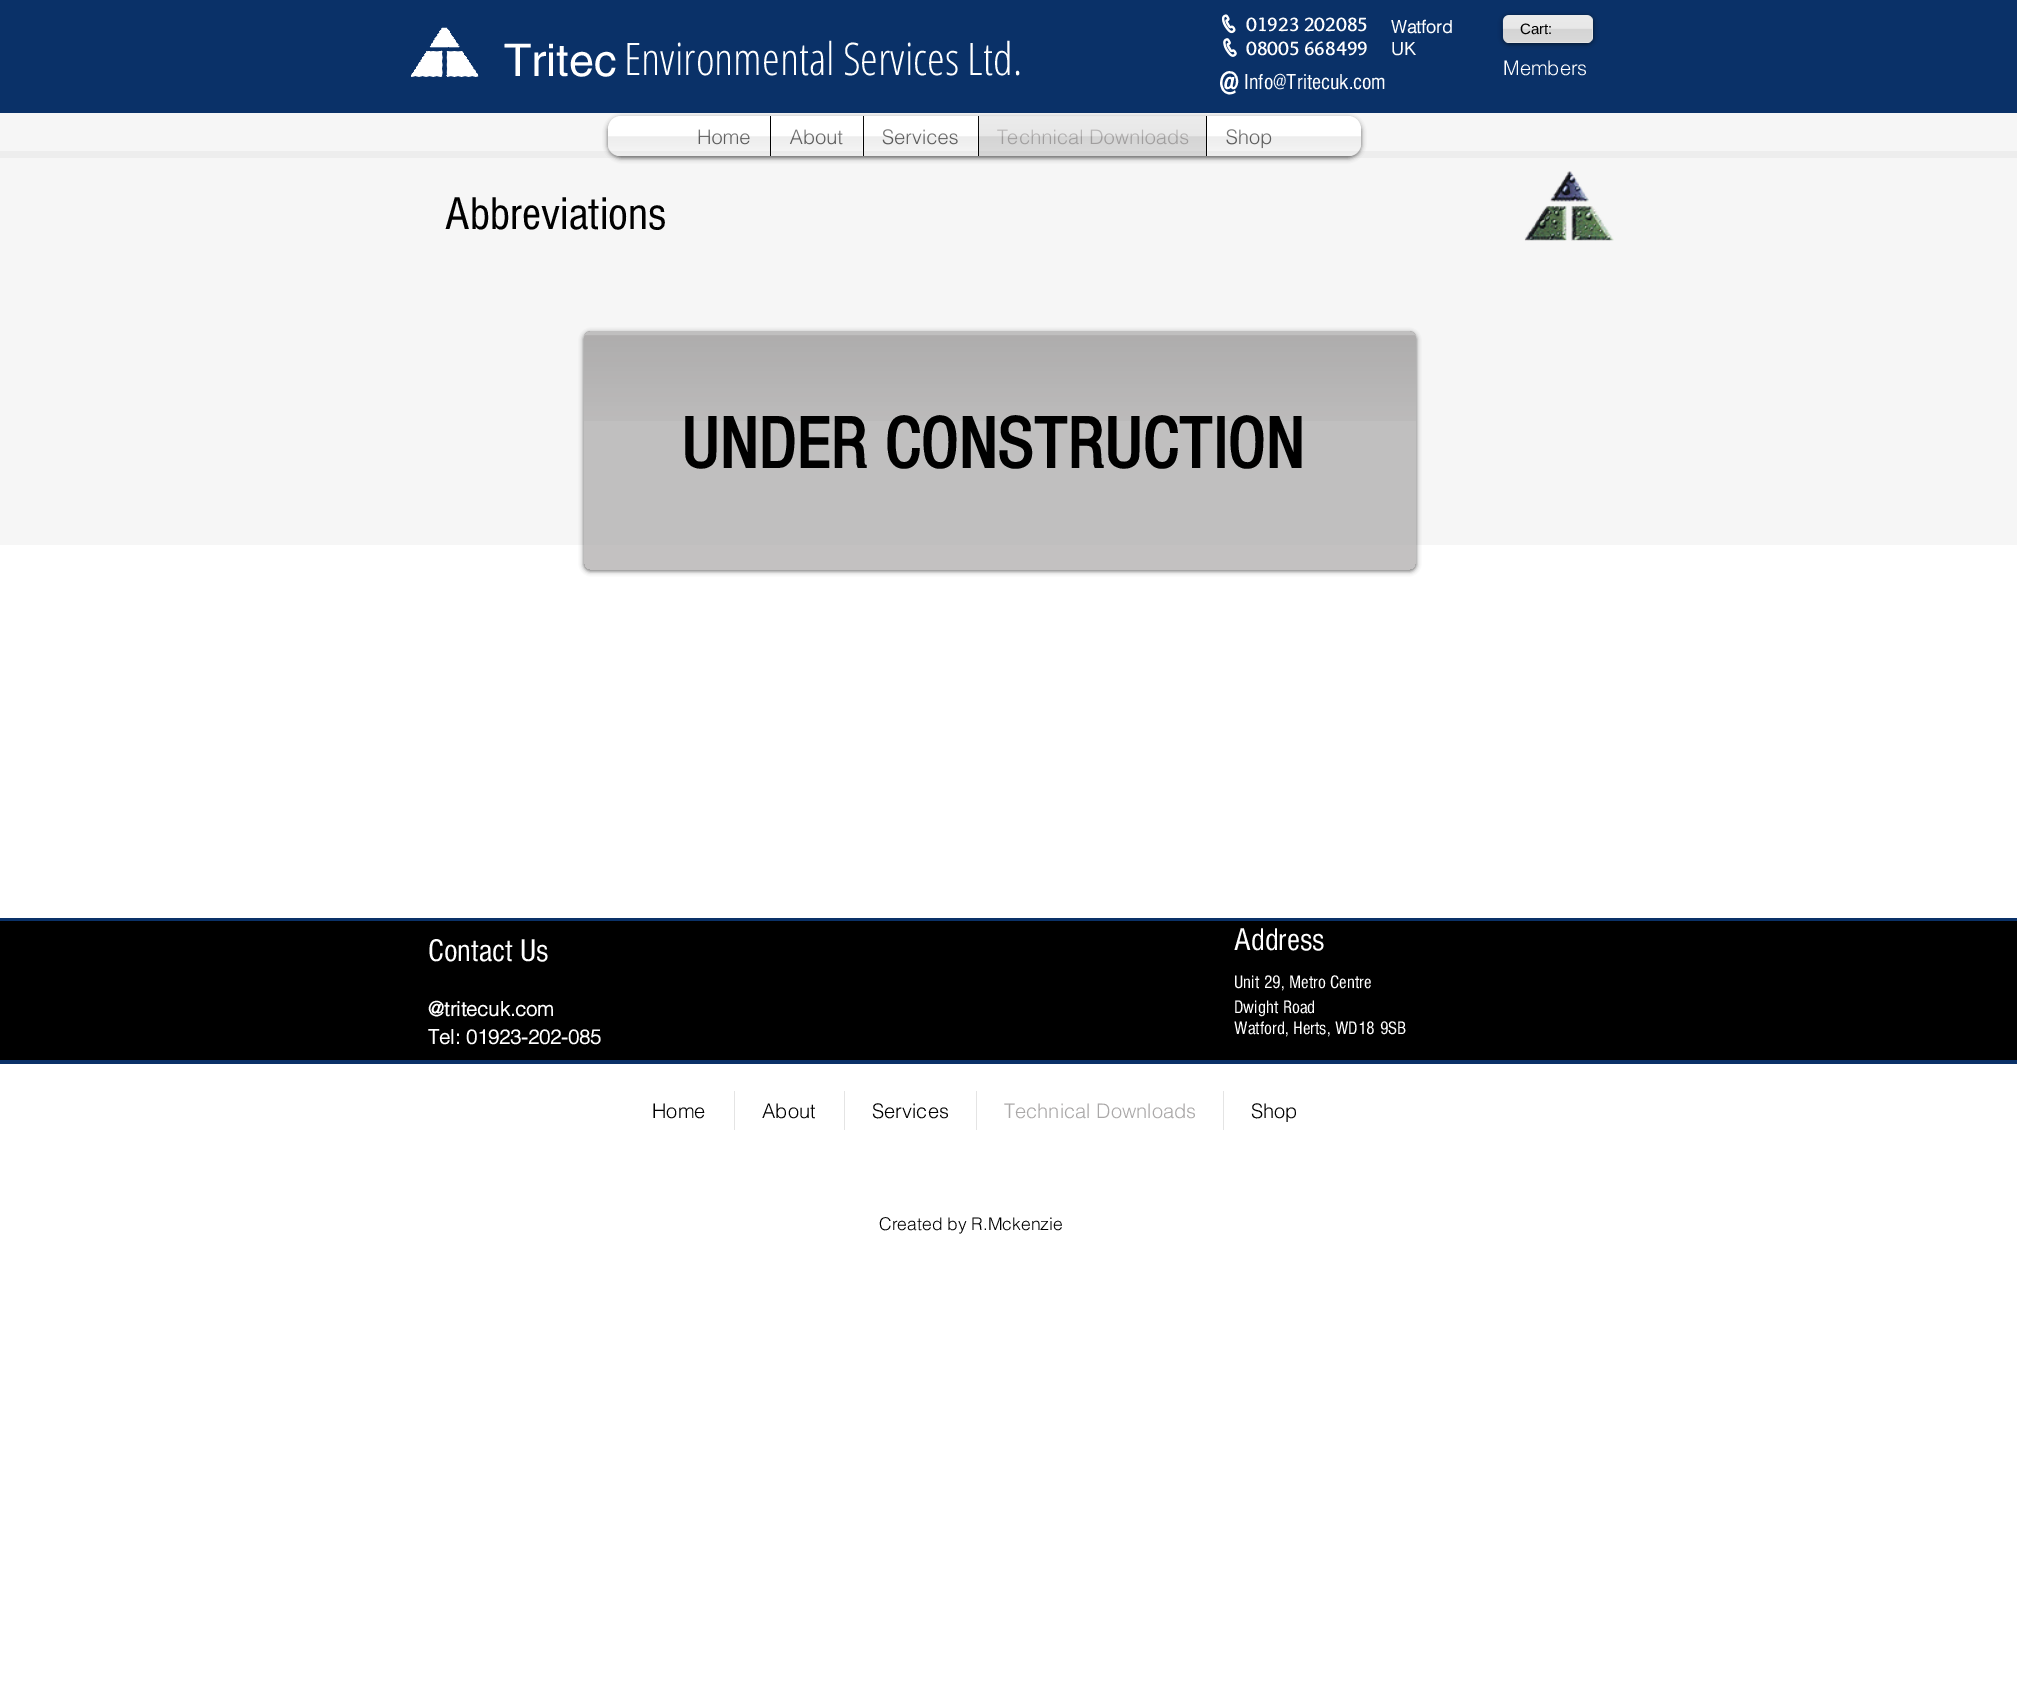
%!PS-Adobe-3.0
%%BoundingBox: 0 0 2017 1686
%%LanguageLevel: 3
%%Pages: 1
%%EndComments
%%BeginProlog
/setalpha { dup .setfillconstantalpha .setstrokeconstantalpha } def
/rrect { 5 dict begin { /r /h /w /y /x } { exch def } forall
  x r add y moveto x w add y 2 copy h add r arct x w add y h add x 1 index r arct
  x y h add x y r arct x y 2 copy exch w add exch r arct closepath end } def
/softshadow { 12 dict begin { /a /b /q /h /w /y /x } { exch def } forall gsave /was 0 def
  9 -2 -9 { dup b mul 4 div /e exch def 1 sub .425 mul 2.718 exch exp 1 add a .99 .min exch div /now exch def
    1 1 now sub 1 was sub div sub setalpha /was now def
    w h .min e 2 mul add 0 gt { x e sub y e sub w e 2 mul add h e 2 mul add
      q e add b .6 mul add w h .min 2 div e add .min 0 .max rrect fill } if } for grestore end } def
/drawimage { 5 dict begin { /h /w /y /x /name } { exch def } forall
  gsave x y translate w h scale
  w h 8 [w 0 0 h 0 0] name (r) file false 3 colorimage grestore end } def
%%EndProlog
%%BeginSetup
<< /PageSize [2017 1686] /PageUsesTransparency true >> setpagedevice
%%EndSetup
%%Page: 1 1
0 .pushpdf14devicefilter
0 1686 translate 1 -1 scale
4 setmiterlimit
1 setgray
0 0 2017 1686 rectfill
0.039 0.192 0.408 setrgbcolor
0 0 2017 113 rectfill
(images/1.raw) 411 27 68 50 drawimage
(images/2.raw) 1221 14 15 20 drawimage
0 setgray
1503 16 90 28 6 2.5 0.6 softshadow
0.894 setgray
1503 15 90 28 6 rrect fill
(images/3.raw) 1502 15 90 27 drawimage
(images/4.raw) 1223 38 14 19 drawimage
0.965 setgray
0 113 2017 45 rectfill
0 setgray
608 118 753 40 13 2.5 0.6 softshadow
1 setgray
608 116 753 40 13 rrect fill
(images/5.raw) 608 136 753 20 drawimage
679 136 91 20 rectfill
771 136 92 20 rectfill
0 setgray
770 116 1 40 rectfill
1 setgray
864 136 114 20 rectfill
0 setgray
863 116 1 40 rectfill
0.894 setgray
979 116 227 40 rectfill
0 setgray
978 116 1 40 rectfill
1 setgray
1207 136 84 20 rectfill
0 setgray
1206 116 1 40 rectfill
0.039 0.192 0.408 setrgbcolor
0 918 2017 146 rectfill
0 setgray
0 921 2017 139 rectfill
0.894 setgray
734 1091 1 39 rectfill
844 1091 1 39 rectfill
976 1091 1 39 rectfill
1223 1091 1 39 rectfill
/Overlock-Bold [20 0 0 -20 0 0] selectfont
1 setgray
1246 31 moveto (01923 202085) show
1246 55 moveto (08005 668499) show
/helvetica-Bold [17.5 0 0 -17.5 0 0] selectfont
1391 33 moveto (Watford) show
1391 55 moveto (UK) show
/LiberationSans-Regular [15 0 0 -15 0 0] selectfont
0 setgray
1520 34 moveto (Cart:) show
/helvetica-Regular [45 0 0 -45 0 0] selectfont
1 setgray
504 76 moveto (Tritec) show
/OpenSansCondensed-Light [45 0 0 -45 0 0] selectfont
624 75 moveto (Environmental Services Ltd.) show
/helvetica-Light [20 0 0 -20 0 0] selectfont
1503 75 moveto (Members) show
/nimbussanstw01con-Bold [32.5 0 0 -32.5 0 0] selectfont
1219 94 moveto (@) show
/nimbussanstw01con-Regular [22.5 0 0 -22.5 0 0] selectfont
1244 89 moveto (Info@Tritecuk.com) show
/helvetica-Light [20 0 0 -20 0 0] selectfont
0.38 setgray
697 144 moveto (Home) show
(images/6.raw) 679 129 91 27 drawimage
790 144 moveto (About) show
(images/7.raw) 771 129 92 27 drawimage
882 144 moveto (Services) show
(images/8.raw) 863 116 115 40 drawimage
0.667 0.659 0.659 setrgbcolor
997 144 moveto (Technical Downloads) show
(images/9.raw) 978 116 228 40 drawimage
0.38 setgray
1226 144 moveto (Shop) show
(images/10.raw) 1207 129 84 27 drawimage
0.06 setalpha
0 151 2017 394 rectfill
/nimbussanstw01con-Regular [47.5 0 0 -47.5 0 0] selectfont
1 setalpha
0 setgray
445 229 moveto (Abbreviations) show
(images/11.raw) 1524 171 90 70 drawimage
gsave
newpath 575 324 moveto 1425 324 lineto 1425 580 lineto 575 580 lineto closepath 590 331 moveto 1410 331 lineto 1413.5 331 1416 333.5 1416 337 curveto 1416 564 lineto 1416 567.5 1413.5 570 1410 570 curveto 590 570 lineto 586.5 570 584 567.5 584 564 curveto 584 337 lineto 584 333.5 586.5 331 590 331 curveto closepath eoclip newpath
584 333 832 238 6 2.5 0.6 softshadow
grestore
0.71 setalpha
0.667 0.659 0.659 setrgbcolor
584 331 832 239 6 rrect fill
1 setalpha
(images/12.raw) 584 335 832 86 drawimage
/nimbussanstw01con-Bold [75 0 0 -75 0 0] selectfont
0 setgray
681 468 moveto (UNDER CONSTRUCTION) show
/nimbussanstw01con-Regular [32.5 0 0 -32.5 0 0] selectfont
1 setgray
428 961 moveto (Contact Us) show
/helvetica-Bold [20 0 0 -20 0 0] selectfont
428 1016 moveto (@tritecuk.com) show
428 1044 moveto (Tel: 01923-202-085) show
/nimbussanstw01con-Regular [32.5 0 0 -32.5 0 0] selectfont
1234 950 moveto (Address) show
/nimbussanstw01con-Regular [18.75 0 0 -18.75 0 0] selectfont
1234 988 moveto (Unit 29, Metro Centre) show
1234 1013 moveto (Dwight Road) show
1234 1034 moveto (Watford, Herts, WD18 9SB) show
/helvetica-Light [20 0 0 -20 0 0] selectfont
0 setgray
652 1118 moveto (Home) show
762 1118 moveto (About) show
872 1118 moveto (Services) show
0.667 0.659 0.659 setrgbcolor
1004 1118 moveto (Technical Downloads) show
0 setgray
1251 1118 moveto (Shop) show
/helvetica-Light [17.5 0 0 -17.5 0 0] selectfont
879 1230 moveto (Created by R.Mckenzie) show
.poppdf14devicefilter showpage
%%EOF
